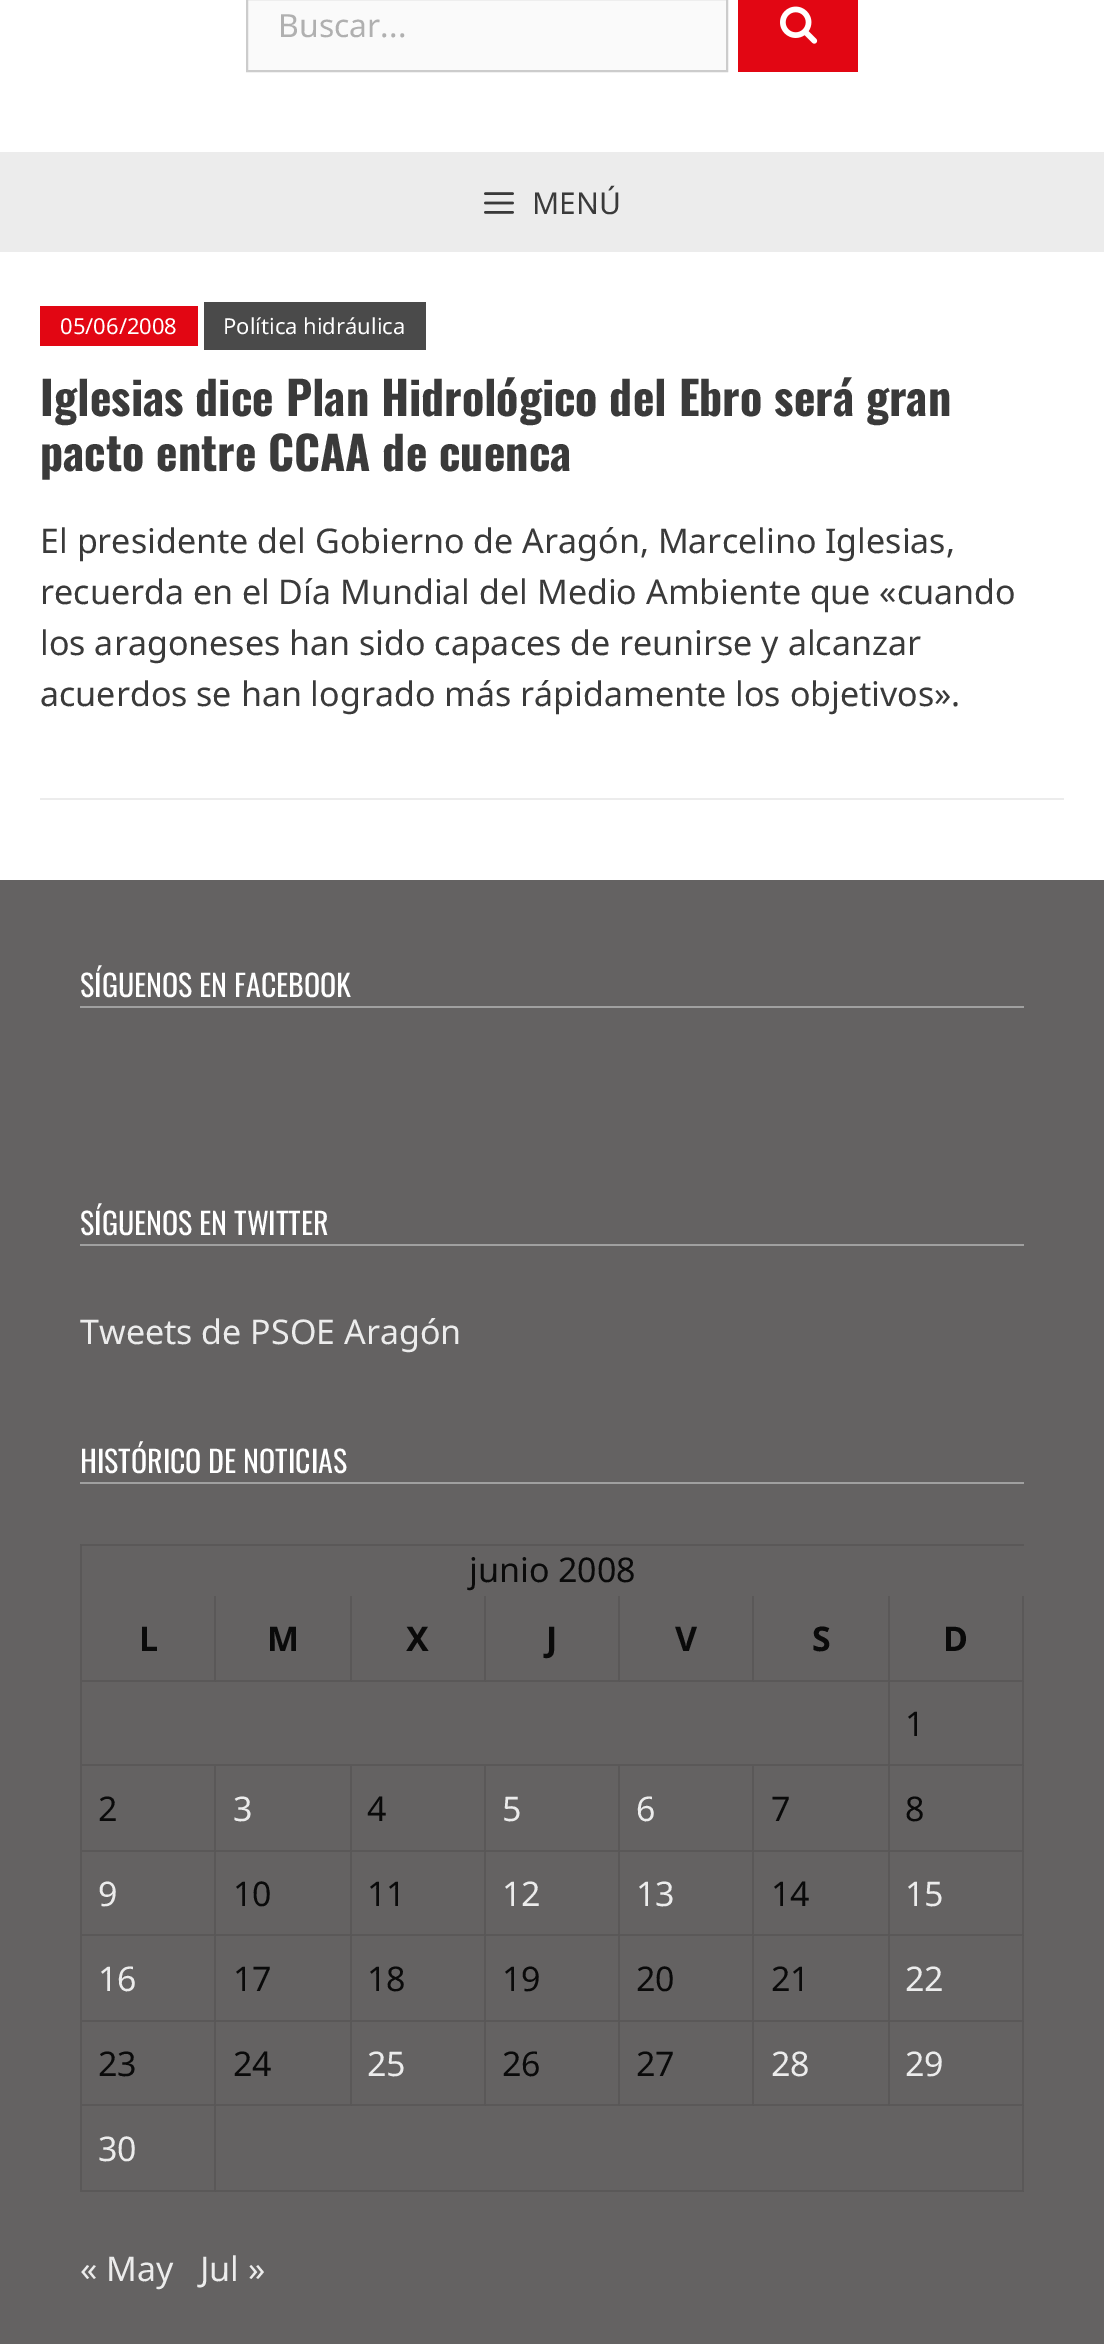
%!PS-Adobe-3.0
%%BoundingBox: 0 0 1104 2344
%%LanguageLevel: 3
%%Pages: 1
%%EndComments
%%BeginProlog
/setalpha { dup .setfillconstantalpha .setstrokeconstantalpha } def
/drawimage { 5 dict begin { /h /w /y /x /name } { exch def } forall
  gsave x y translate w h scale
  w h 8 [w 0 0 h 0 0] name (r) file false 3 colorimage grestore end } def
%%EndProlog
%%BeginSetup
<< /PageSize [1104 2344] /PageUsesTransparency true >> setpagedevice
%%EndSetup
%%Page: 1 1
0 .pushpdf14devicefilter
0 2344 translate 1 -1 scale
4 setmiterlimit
1 setgray
0 0 1104 2344 rectfill
0.98 setgray
newpath 247 -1 moveto 727 -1 lineto 727 71 lineto 247 71 lineto closepath gsave fill grestore
0.8 setgray
2 setlinewidth
stroke
0.886 0.024 0.075 setrgbcolor
738 0 120 72 rectfill
(images/1.raw) 780 6 38 38 drawimage
0.925 setgray
0 152 1104 100 rectfill
(images/2.raw) 484 192 30 22 drawimage
0.886 0.024 0.075 setrgbcolor
40 306 158 40 rectfill
0.29 setgray
204 302 222 48 rectfill
0.925 setgray
40 798 1024 2 rectfill
0.392 0.384 0.384 setrgbcolor
0 880 1104 1464 rectfill
0.627 setgray
80 1006 944 2 rectfill
80 1244 944 2 rectfill
80 1482 944 2 rectfill
0.353 0.345 0.345 setrgbcolor
newpath 80 1544 moveto 1024 1544 lineto 1024 1546 lineto 82 1546 lineto closepath fill
0.1 setalpha
0 setgray
newpath 80 2192 moveto 80 1544 lineto 82 1546 lineto 82 2192 lineto closepath fill
1 setalpha
0.353 0.345 0.345 setrgbcolor
newpath 216 1596 moveto 216 1682 lineto 214 1680 lineto 214 1596 lineto closepath fill
0.1 setalpha
0 setgray
newpath 216 1682 moveto 82 1682 lineto 82 1680 lineto 214 1680 lineto closepath fill
1 setalpha
0.353 0.345 0.345 setrgbcolor
newpath 352 1596 moveto 352 1682 lineto 350 1680 lineto 350 1596 lineto closepath fill
0.1 setalpha
0 setgray
newpath 352 1682 moveto 216 1682 lineto 216 1680 lineto 350 1680 lineto closepath fill
1 setalpha
0.353 0.345 0.345 setrgbcolor
newpath 486 1596 moveto 486 1682 lineto 484 1680 lineto 484 1596 lineto closepath fill
0.1 setalpha
0 setgray
newpath 486 1682 moveto 352 1682 lineto 352 1680 lineto 484 1680 lineto closepath fill
1 setalpha
0.353 0.345 0.345 setrgbcolor
newpath 620 1596 moveto 620 1682 lineto 618 1680 lineto 618 1596 lineto closepath fill
0.1 setalpha
0 setgray
newpath 620 1682 moveto 486 1682 lineto 486 1680 lineto 618 1680 lineto closepath fill
1 setalpha
0.353 0.345 0.345 setrgbcolor
newpath 754 1596 moveto 754 1682 lineto 752 1680 lineto 752 1596 lineto closepath fill
0.1 setalpha
0 setgray
newpath 754 1682 moveto 620 1682 lineto 620 1680 lineto 752 1680 lineto closepath fill
1 setalpha
0.353 0.345 0.345 setrgbcolor
newpath 890 1596 moveto 890 1682 lineto 888 1680 lineto 888 1596 lineto closepath fill
0.1 setalpha
0 setgray
newpath 890 1682 moveto 754 1682 lineto 754 1680 lineto 888 1680 lineto closepath fill
1 setalpha
0.353 0.345 0.345 setrgbcolor
newpath 1024 1596 moveto 1024 1682 lineto 1022 1680 lineto 1022 1596 lineto closepath fill
0.1 setalpha
0 setgray
newpath 1024 1682 moveto 890 1682 lineto 890 1680 lineto 1022 1680 lineto closepath fill
1 setalpha
0.353 0.345 0.345 setrgbcolor
newpath 890 1682 moveto 890 1766 lineto 888 1764 lineto 888 1682 lineto closepath fill
0.1 setalpha
0 setgray
newpath 890 1766 moveto 82 1766 lineto 82 1764 lineto 888 1764 lineto closepath fill
1 setalpha
0.353 0.345 0.345 setrgbcolor
newpath 1024 1682 moveto 1024 1766 lineto 1022 1764 lineto 1022 1682 lineto closepath fill
0.1 setalpha
0 setgray
newpath 1024 1766 moveto 890 1766 lineto 890 1764 lineto 1022 1764 lineto closepath fill
1 setalpha
0.353 0.345 0.345 setrgbcolor
newpath 216 1766 moveto 216 1852 lineto 214 1850 lineto 214 1766 lineto closepath fill
0.1 setalpha
0 setgray
newpath 216 1852 moveto 82 1852 lineto 82 1850 lineto 214 1850 lineto closepath fill
1 setalpha
0.353 0.345 0.345 setrgbcolor
newpath 352 1766 moveto 352 1852 lineto 350 1850 lineto 350 1766 lineto closepath fill
0.1 setalpha
0 setgray
newpath 352 1852 moveto 216 1852 lineto 216 1850 lineto 350 1850 lineto closepath fill
1 setalpha
0.353 0.345 0.345 setrgbcolor
newpath 486 1766 moveto 486 1852 lineto 484 1850 lineto 484 1766 lineto closepath fill
0.1 setalpha
0 setgray
newpath 486 1852 moveto 352 1852 lineto 352 1850 lineto 484 1850 lineto closepath fill
1 setalpha
0.353 0.345 0.345 setrgbcolor
newpath 620 1766 moveto 620 1852 lineto 618 1850 lineto 618 1766 lineto closepath fill
0.1 setalpha
0 setgray
newpath 620 1852 moveto 486 1852 lineto 486 1850 lineto 618 1850 lineto closepath fill
1 setalpha
0.353 0.345 0.345 setrgbcolor
newpath 754 1766 moveto 754 1852 lineto 752 1850 lineto 752 1766 lineto closepath fill
0.1 setalpha
0 setgray
newpath 754 1852 moveto 620 1852 lineto 620 1850 lineto 752 1850 lineto closepath fill
1 setalpha
0.353 0.345 0.345 setrgbcolor
newpath 890 1766 moveto 890 1852 lineto 888 1850 lineto 888 1766 lineto closepath fill
0.1 setalpha
0 setgray
newpath 890 1852 moveto 754 1852 lineto 754 1850 lineto 888 1850 lineto closepath fill
1 setalpha
0.353 0.345 0.345 setrgbcolor
newpath 1024 1766 moveto 1024 1852 lineto 1022 1850 lineto 1022 1766 lineto closepath fill
0.1 setalpha
0 setgray
newpath 1024 1852 moveto 890 1852 lineto 890 1850 lineto 1022 1850 lineto closepath fill
1 setalpha
0.353 0.345 0.345 setrgbcolor
newpath 216 1852 moveto 216 1936 lineto 214 1934 lineto 214 1852 lineto closepath fill
0.1 setalpha
0 setgray
newpath 216 1936 moveto 82 1936 lineto 82 1934 lineto 214 1934 lineto closepath fill
1 setalpha
0.353 0.345 0.345 setrgbcolor
newpath 352 1852 moveto 352 1936 lineto 350 1934 lineto 350 1852 lineto closepath fill
0.1 setalpha
0 setgray
newpath 352 1936 moveto 216 1936 lineto 216 1934 lineto 350 1934 lineto closepath fill
1 setalpha
0.353 0.345 0.345 setrgbcolor
newpath 486 1852 moveto 486 1936 lineto 484 1934 lineto 484 1852 lineto closepath fill
0.1 setalpha
0 setgray
newpath 486 1936 moveto 352 1936 lineto 352 1934 lineto 484 1934 lineto closepath fill
1 setalpha
0.353 0.345 0.345 setrgbcolor
newpath 620 1852 moveto 620 1936 lineto 618 1934 lineto 618 1852 lineto closepath fill
0.1 setalpha
0 setgray
newpath 620 1936 moveto 486 1936 lineto 486 1934 lineto 618 1934 lineto closepath fill
1 setalpha
0.353 0.345 0.345 setrgbcolor
newpath 754 1852 moveto 754 1936 lineto 752 1934 lineto 752 1852 lineto closepath fill
0.1 setalpha
0 setgray
newpath 754 1936 moveto 620 1936 lineto 620 1934 lineto 752 1934 lineto closepath fill
1 setalpha
0.353 0.345 0.345 setrgbcolor
newpath 890 1852 moveto 890 1936 lineto 888 1934 lineto 888 1852 lineto closepath fill
0.1 setalpha
0 setgray
newpath 890 1936 moveto 754 1936 lineto 754 1934 lineto 888 1934 lineto closepath fill
1 setalpha
0.353 0.345 0.345 setrgbcolor
newpath 1024 1852 moveto 1024 1936 lineto 1022 1934 lineto 1022 1852 lineto closepath fill
0.1 setalpha
0 setgray
newpath 1024 1936 moveto 890 1936 lineto 890 1934 lineto 1022 1934 lineto closepath fill
1 setalpha
0.353 0.345 0.345 setrgbcolor
newpath 216 1936 moveto 216 2022 lineto 214 2020 lineto 214 1936 lineto closepath fill
0.1 setalpha
0 setgray
newpath 216 2022 moveto 82 2022 lineto 82 2020 lineto 214 2020 lineto closepath fill
1 setalpha
0.353 0.345 0.345 setrgbcolor
newpath 352 1936 moveto 352 2022 lineto 350 2020 lineto 350 1936 lineto closepath fill
0.1 setalpha
0 setgray
newpath 352 2022 moveto 216 2022 lineto 216 2020 lineto 350 2020 lineto closepath fill
1 setalpha
0.353 0.345 0.345 setrgbcolor
newpath 486 1936 moveto 486 2022 lineto 484 2020 lineto 484 1936 lineto closepath fill
0.1 setalpha
0 setgray
newpath 486 2022 moveto 352 2022 lineto 352 2020 lineto 484 2020 lineto closepath fill
1 setalpha
0.353 0.345 0.345 setrgbcolor
newpath 620 1936 moveto 620 2022 lineto 618 2020 lineto 618 1936 lineto closepath fill
0.1 setalpha
0 setgray
newpath 620 2022 moveto 486 2022 lineto 486 2020 lineto 618 2020 lineto closepath fill
1 setalpha
0.353 0.345 0.345 setrgbcolor
newpath 754 1936 moveto 754 2022 lineto 752 2020 lineto 752 1936 lineto closepath fill
0.1 setalpha
0 setgray
newpath 754 2022 moveto 620 2022 lineto 620 2020 lineto 752 2020 lineto closepath fill
1 setalpha
0.353 0.345 0.345 setrgbcolor
newpath 890 1936 moveto 890 2022 lineto 888 2020 lineto 888 1936 lineto closepath fill
0.1 setalpha
0 setgray
newpath 890 2022 moveto 754 2022 lineto 754 2020 lineto 888 2020 lineto closepath fill
1 setalpha
0.353 0.345 0.345 setrgbcolor
newpath 1024 1936 moveto 1024 2022 lineto 1022 2020 lineto 1022 1936 lineto closepath fill
0.1 setalpha
0 setgray
newpath 1024 2022 moveto 890 2022 lineto 890 2020 lineto 1022 2020 lineto closepath fill
1 setalpha
0.353 0.345 0.345 setrgbcolor
newpath 216 2022 moveto 216 2106 lineto 214 2104 lineto 214 2022 lineto closepath fill
0.1 setalpha
0 setgray
newpath 216 2106 moveto 82 2106 lineto 82 2104 lineto 214 2104 lineto closepath fill
1 setalpha
0.353 0.345 0.345 setrgbcolor
newpath 352 2022 moveto 352 2106 lineto 350 2104 lineto 350 2022 lineto closepath fill
0.1 setalpha
0 setgray
newpath 352 2106 moveto 216 2106 lineto 216 2104 lineto 350 2104 lineto closepath fill
1 setalpha
0.353 0.345 0.345 setrgbcolor
newpath 486 2022 moveto 486 2106 lineto 484 2104 lineto 484 2022 lineto closepath fill
0.1 setalpha
0 setgray
newpath 486 2106 moveto 352 2106 lineto 352 2104 lineto 484 2104 lineto closepath fill
1 setalpha
0.353 0.345 0.345 setrgbcolor
newpath 620 2022 moveto 620 2106 lineto 618 2104 lineto 618 2022 lineto closepath fill
0.1 setalpha
0 setgray
newpath 620 2106 moveto 486 2106 lineto 486 2104 lineto 618 2104 lineto closepath fill
1 setalpha
0.353 0.345 0.345 setrgbcolor
newpath 754 2022 moveto 754 2106 lineto 752 2104 lineto 752 2022 lineto closepath fill
0.1 setalpha
0 setgray
newpath 754 2106 moveto 620 2106 lineto 620 2104 lineto 752 2104 lineto closepath fill
1 setalpha
0.353 0.345 0.345 setrgbcolor
newpath 890 2022 moveto 890 2106 lineto 888 2104 lineto 888 2022 lineto closepath fill
0.1 setalpha
0 setgray
newpath 890 2106 moveto 754 2106 lineto 754 2104 lineto 888 2104 lineto closepath fill
1 setalpha
0.353 0.345 0.345 setrgbcolor
newpath 1024 2022 moveto 1024 2106 lineto 1022 2104 lineto 1022 2022 lineto closepath fill
0.1 setalpha
0 setgray
newpath 1024 2106 moveto 890 2106 lineto 890 2104 lineto 1022 2104 lineto closepath fill
1 setalpha
0.353 0.345 0.345 setrgbcolor
newpath 216 2106 moveto 216 2192 lineto 214 2190 lineto 214 2106 lineto closepath fill
0.1 setalpha
0 setgray
newpath 216 2192 moveto 82 2192 lineto 82 2190 lineto 214 2190 lineto closepath fill
1 setalpha
0.353 0.345 0.345 setrgbcolor
newpath 1024 2106 moveto 1024 2192 lineto 1022 2190 lineto 1022 2106 lineto closepath fill
0.1 setalpha
0 setgray
newpath 1024 2192 moveto 216 2192 lineto 216 2190 lineto 1022 2190 lineto closepath fill
/NotoSans-Regular [32 0 0 -32 0 0] selectfont
1 setalpha
0.69 setgray
278 37 moveto (Buscar...) show
/NotoSans-Regular [30 0 0 -30 0 0] selectfont
0.227 setgray
532 214 moveto (MENÚ) show
/NotoSans-Regular [22 0 0 -22 0 0] selectfont
1 setgray
60 334 moveto (05/06/2008) show
223 334 moveto (Política hidráulica) show
/Oswald-Bold [46 0 0 -46 0 0] selectfont
0.227 setgray
40 416 moveto (Iglesias dice Plan Hidrológico del Ebro será gran) show
40 471 moveto (pacto entre CCAA de cuenca) show
/NotoSans-Regular [34 0 0 -34 0 0] selectfont
40 553 moveto (El presidente del Gobierno de Aragón, Marcelino Iglesias,) show
40 604 moveto (recuerda en el Día Mundial del Medio Ambiente que «cuando) show
40 655 moveto (los aragoneses han sido capaces de reunirse y alcanzar) show
40 706 moveto (acuerdos se han logrado más rápidamente los objetivos».) show
/Oswald-Regular [30 0 0 -30 0 0] selectfont
1 setgray
80 997 moveto (SÍGUENOS EN FACEBOOK) show
80 1235 moveto (SÍGUENOS EN TWITTER) show
/NotoSans-Regular [34 0 0 -34 0 0] selectfont
0.925 setgray
80 1344 moveto (Tweets de PSOE Aragón) show
/Oswald-Regular [30 0 0 -30 0 0] selectfont
1 setgray
80 1473 moveto (HISTÓRICO DE NOTICIAS) show
/NotoSans-Regular [34 0 0 -34 0 0] selectfont
0.039 setgray
469 1582 moveto (junio 2008) show
/NotoSans-Bold [34 0 0 -34 0 0] selectfont
139 1651 moveto (L) show
267 1651 moveto (M) show
406 1651 moveto (X) show
546 1651 moveto (J) show
675 1651 moveto (V) show
812 1651 moveto (S) show
943 1651 moveto (D) show
/NotoSans-Regular [34 0 0 -34 0 0] selectfont
905 1736 moveto (1) show
98 1821 moveto (2) show
0.925 setgray
233 1821 moveto (3) show
0.039 setgray
367 1821 moveto (4) show
0.925 setgray
502 1821 moveto (5) show
636 1821 moveto (6) show
0.039 setgray
771 1821 moveto (7) show
905 1821 moveto (8) show
0.925 setgray
98 1906 moveto (9) show
0.039 setgray
233 1906 moveto (10) show
367 1906 moveto (11) show
0.925 setgray
502 1906 moveto (12) show
636 1906 moveto (13) show
0.039 setgray
771 1906 moveto (14) show
0.925 setgray
905 1906 moveto (15) show
98 1991 moveto (16) show
0.039 setgray
233 1991 moveto (17) show
367 1991 moveto (18) show
502 1991 moveto (19) show
636 1991 moveto (20) show
771 1991 moveto (21) show
0.925 setgray
905 1991 moveto (22) show
0.039 setgray
98 2076 moveto (23) show
233 2076 moveto (24) show
0.925 setgray
367 2076 moveto (25) show
0.039 setgray
502 2076 moveto (26) show
636 2076 moveto (27) show
0.925 setgray
771 2076 moveto (28) show
905 2076 moveto (29) show
98 2161 moveto (30) show
80 2281 moveto (« May) show
200 2281 moveto (Jul ») show
.poppdf14devicefilter showpage
%%EOF
